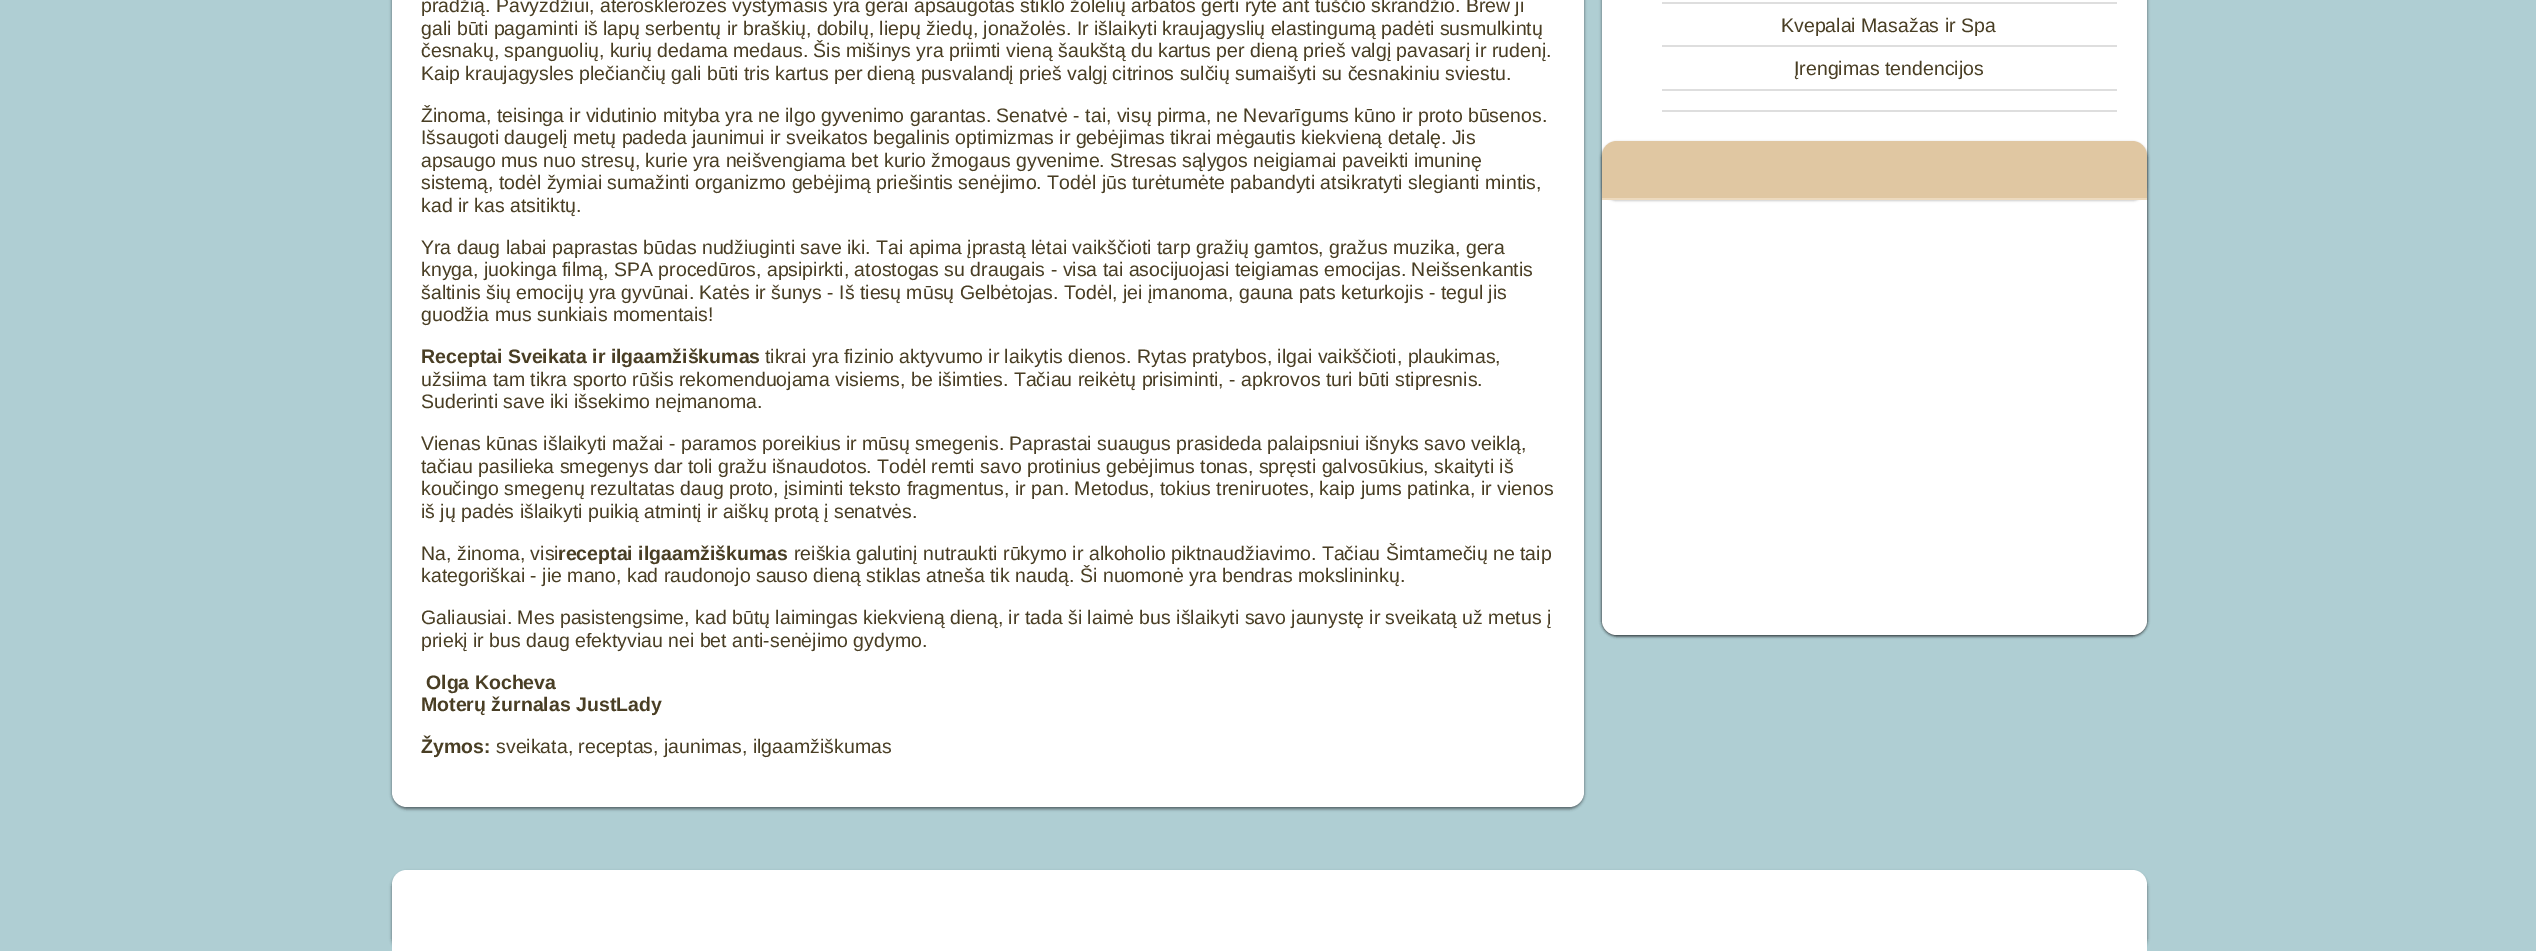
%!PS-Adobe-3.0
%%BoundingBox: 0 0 2536 951
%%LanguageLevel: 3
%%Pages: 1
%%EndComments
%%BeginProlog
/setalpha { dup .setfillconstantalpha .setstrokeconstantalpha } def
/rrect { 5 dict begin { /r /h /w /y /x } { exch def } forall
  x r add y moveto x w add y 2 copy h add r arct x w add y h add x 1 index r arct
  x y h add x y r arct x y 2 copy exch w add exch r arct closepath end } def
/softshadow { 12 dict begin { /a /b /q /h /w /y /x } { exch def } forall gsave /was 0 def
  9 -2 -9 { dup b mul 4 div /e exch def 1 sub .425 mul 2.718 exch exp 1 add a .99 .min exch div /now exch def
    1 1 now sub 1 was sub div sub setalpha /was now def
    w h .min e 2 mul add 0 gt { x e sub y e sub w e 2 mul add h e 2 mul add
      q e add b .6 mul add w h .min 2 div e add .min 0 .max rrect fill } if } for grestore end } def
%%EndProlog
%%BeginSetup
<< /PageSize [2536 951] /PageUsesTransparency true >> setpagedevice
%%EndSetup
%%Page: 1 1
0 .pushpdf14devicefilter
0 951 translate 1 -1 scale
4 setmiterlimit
0.686 0.808 0.827 setrgbcolor
0 0 2536 951 rectfill
0 setgray
392 -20 1192 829 15 1.5 0.5 softshadow
1 setgray
392 -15 1192 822 15 rrect fill
0 setgray
1602 -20 545 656 15 1.5 0.5 softshadow
1 setgray
1602 -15 545 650 15 rrect fill
0.871 setgray
1662 2 455 2 rectfill
1662 45 455 2 rectfill
1662 89 455 2 rectfill
1662 110 455 2 rectfill
0 setgray
1602 143 545 493 15 1.5 0.5 softshadow
1 setgray
1602 141 545 494 15 rrect fill
0 setgray
1602 143 545 58 15 1 0.2 softshadow
0.878 0.78 0.635 setrgbcolor
newpath 1617 141 moveto 2132 141 lineto 2140.5 141 2147 147.5 2147 156 curveto 2147 200 lineto 1602 200 lineto 1602 156 lineto 1602 147.5 1608.5 141 1617 141 curveto closepath fill
0.929 0.855 0.745 setrgbcolor
1602 198 545 2 rectfill
0 setgray
392 872 1755 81 15 1.5 0.5 softshadow
1 setgray
newpath 407 870 moveto 2132 870 lineto 2140.5 870 2147 876.5 2147 885 curveto 2147 951 lineto 392 951 lineto 392 885 lineto 392 876.5 398.5 870 407 870 curveto closepath fill
/LiberationSans-Regular [19.5 0 0 -19.5 0 0] selectfont
0.286 0.243 0.141 setrgbcolor
421 12 moveto (pradžią. Pavyzdžiui, aterosklerozės vystymasis yra gerai apsaugotas stiklo žolelių arbatos gerti ryte ant tuščio skrandžio. Brew ji) show
421 35 moveto (gali būti pagaminti iš lapų serbentų ir braškių, dobilų, liepų žiedų, jonažolės. Ir išlaikyti kraujagyslių elastingumą padėti susmulkintų) show
421 57 moveto (česnakų, spanguolių, kurių dedama medaus. Šis mišinys yra priimti vieną šaukštą du kartus per dieną prieš valgį pavasarį ir rudenį.) show
421 80 moveto (Kaip kraujagysles plečiančių gali būti tris kartus per dieną pusvalandį prieš valgį citrinos sulčių sumaišyti su česnakiniu sviestu.) show
421 122 moveto (Žinoma, teisinga ir vidutinio mityba yra ne ilgo gyvenimo garantas. Senatvė - tai, visų pirma, ne Nevarīgums kūno ir proto būsenos.) show
421 144 moveto (Išsaugoti daugelį metų padeda jaunimui ir sveikatos begalinis optimizmas ir gebėjimas tikrai mėgautis kiekvieną detalę. Jis) show
421 167 moveto (apsaugo mus nuo stresų, kurie yra neišvengiama bet kurio žmogaus gyvenime. Stresas sąlygos neigiamai paveikti imuninę) show
421 189 moveto (sistemą, todėl žymiai sumažinti organizmo gebėjimą priešintis senėjimo. Todėl jūs turėtumėte pabandyti atsikratyti slegianti mintis,) show
421 212 moveto (kad ir kas atsitiktų.) show
421 254 moveto (Yra daug labai paprastas būdas nudžiuginti save iki. Tai apima įprastą lėtai vaikščioti tarp gražių gamtos, gražus muzika, gera) show
421 276 moveto (knyga, juokinga filmą, SPA procedūros, apsipirkti, atostogas su draugais - visa tai asocijuojasi teigiamas emocijas. Neišsenkantis) show
421 299 moveto (šaltinis šių emocijų yra gyvūnai. Katės ir šunys - Iš tiesų mūsų Gelbėtojas. Todėl, jei įmanoma, gauna pats keturkojis - tegul jis) show
421 321 moveto (guodžia mus sunkiais momentais!) show
/LiberationSans-Bold [19.5 0 0 -19.5 0 0] selectfont
421 363 moveto (Receptai Sveikata ir ilgaamžiškumas) show
/LiberationSans-Regular [19.5 0 0 -19.5 0 0] selectfont
765 363 moveto (tikrai yra fizinio aktyvumo ir laikytis dienos. Rytas pratybos, ilgai vaikščioti, plaukimas,) show
421 386 moveto (užsiima tam tikra sporto rūšis rekomenduojama visiems, be išimties. Tačiau reikėtų prisiminti, - apkrovos turi būti stipresnis.) show
421 408 moveto (Suderinti save iki išsekimo neįmanoma.) show
421 450 moveto (Vienas kūnas išlaikyti mažai - paramos poreikius ir mūsų smegenis. Paprastai suaugus prasideda palaipsniui išnyks savo veiklą,) show
421 473 moveto (tačiau pasilieka smegenys dar toli gražu išnaudotos. Todėl remti savo protinius gebėjimus tonas, spręsti galvosūkius, skaityti iš) show
421 495 moveto (koučingo smegenų rezultatas daug proto, įsiminti teksto fragmentus, ir pan. Metodus, tokius treniruotes, kaip jums patinka, ir vienos) show
421 518 moveto (iš jų padės išlaikyti puikią atmintį ir aiškų protą į senatvės.) show
421 560 moveto (Na, žinoma, visi) show
/LiberationSans-Bold [19.5 0 0 -19.5 0 0] selectfont
558 560 moveto (receptai ilgaamžiškumas) show
/LiberationSans-Regular [19.5 0 0 -19.5 0 0] selectfont
794 560 moveto (reiškia galutinį nutraukti rūkymo ir alkoholio piktnaudžiavimo. Tačiau Šimtamečių ne taip) show
421 582 moveto (kategoriškai - jie mano, kad raudonojo sauso dieną stiklas atneša tik naudą. Ši nuomonė yra bendras mokslininkų.) show
421 624 moveto (Galiausiai. Mes pasistengsime, kad būtų laimingas kiekvieną dieną, ir tada ši laimė bus išlaikyti savo jaunystę ir sveikatą už metus į) show
421 647 moveto (priekį ir bus daug efektyviau nei bet anti-senėjimo gydymo.) show
/LiberationSans-Bold [19.5 0 0 -19.5 0 0] selectfont
426 689 moveto (Olga Kocheva) show
421 711 moveto (Moterų žurnalas JustLady) show
421 753 moveto (Žymos:) show
/LiberationSans-Regular [19.5 0 0 -19.5 0 0] selectfont
496 753 moveto (sveikata, receptas, jaunimas, ilgaamžiškumas) show
1781 32 moveto (Kvepalai Masažas ir Spa) show
1794 75 moveto (Įrengimas tendencijos) show
.poppdf14devicefilter showpage
%%EOF
